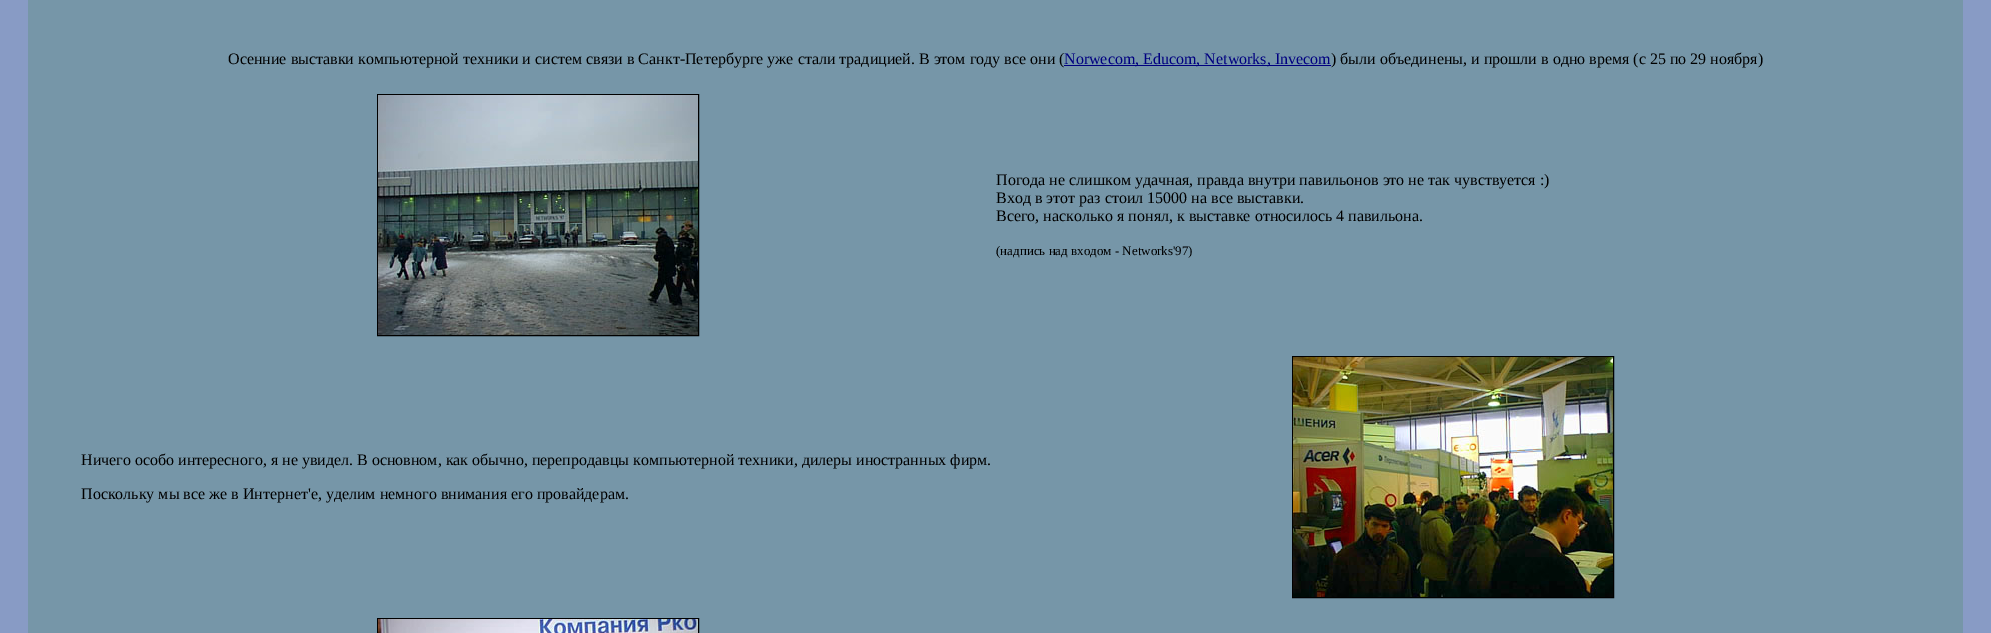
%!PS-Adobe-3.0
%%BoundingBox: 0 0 1991 633
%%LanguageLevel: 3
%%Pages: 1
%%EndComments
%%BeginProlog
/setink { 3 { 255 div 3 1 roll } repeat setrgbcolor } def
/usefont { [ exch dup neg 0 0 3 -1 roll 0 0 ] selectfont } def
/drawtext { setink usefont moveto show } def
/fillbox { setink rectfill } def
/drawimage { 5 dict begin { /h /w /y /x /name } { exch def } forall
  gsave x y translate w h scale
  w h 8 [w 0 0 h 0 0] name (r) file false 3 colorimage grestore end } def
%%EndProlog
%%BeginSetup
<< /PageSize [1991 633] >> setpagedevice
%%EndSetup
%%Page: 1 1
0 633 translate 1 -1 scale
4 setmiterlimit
0 0 1991 633 136 155 197 fillbox
28 0 1935 633 118 150 168 fillbox
(Осенние выставки компьютерной техники и систем связи в Санкт-Петербурге уже стали традицией. В этом году все они \() 228 64 /LiberationSerif-Regular 16 0 0 0 drawtext
1064 65 267 1 0 0 128 fillbox
(Norwecom, Educom, Networks, Invecom) 1064 64 /LiberationSerif-Regular 16 0 0 128 drawtext
(\) были объединены, и прошли в одно время \(с 25 по 29 ноября\)) 1331 64 /LiberationSerif-Regular 16 0 0 0 drawtext
377.5 94.5 321 241 rectstroke
(assets/img1.rgb) 378 95 320 240 drawimage
(Погода не слишком удачная, правда внутри павильонов это не так чувствуется :\)) 996 185 /LiberationSerif-Regular 16 0 0 0 drawtext
(Вход в этот раз стоил 15000 на все выставки.) 996 203 /LiberationSerif-Regular 16 0 0 0 drawtext
(Всего, насколько я понял, к выставке относилось 4 павильона.) 996 221 /LiberationSerif-Regular 16 0 0 0 drawtext
(\(надпись над входом - Networks'97\)) 996 255 /LiberationSerif-Regular 13 0 0 0 drawtext
(Ничего особо интересного, я не увидел. В основном, как обычно, перепродавцы компьютерной техники, дилеры иностранных фирм.) 81 465 /LiberationSerif-Regular 16 0 0 0 drawtext
(Поскольку мы все же в Интернет'е, уделим немного внимания его провайдерам.) 81 499 /LiberationSerif-Regular 16 0 0 0 drawtext
1292.5 356.5 321 241 rectstroke
(assets/img2.rgb) 1293 357 320 240 drawimage
377.5 618.5 321 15 rectstroke
(assets/img3.rgb) 378 619 320 14 drawimage
showpage
%%EOF
